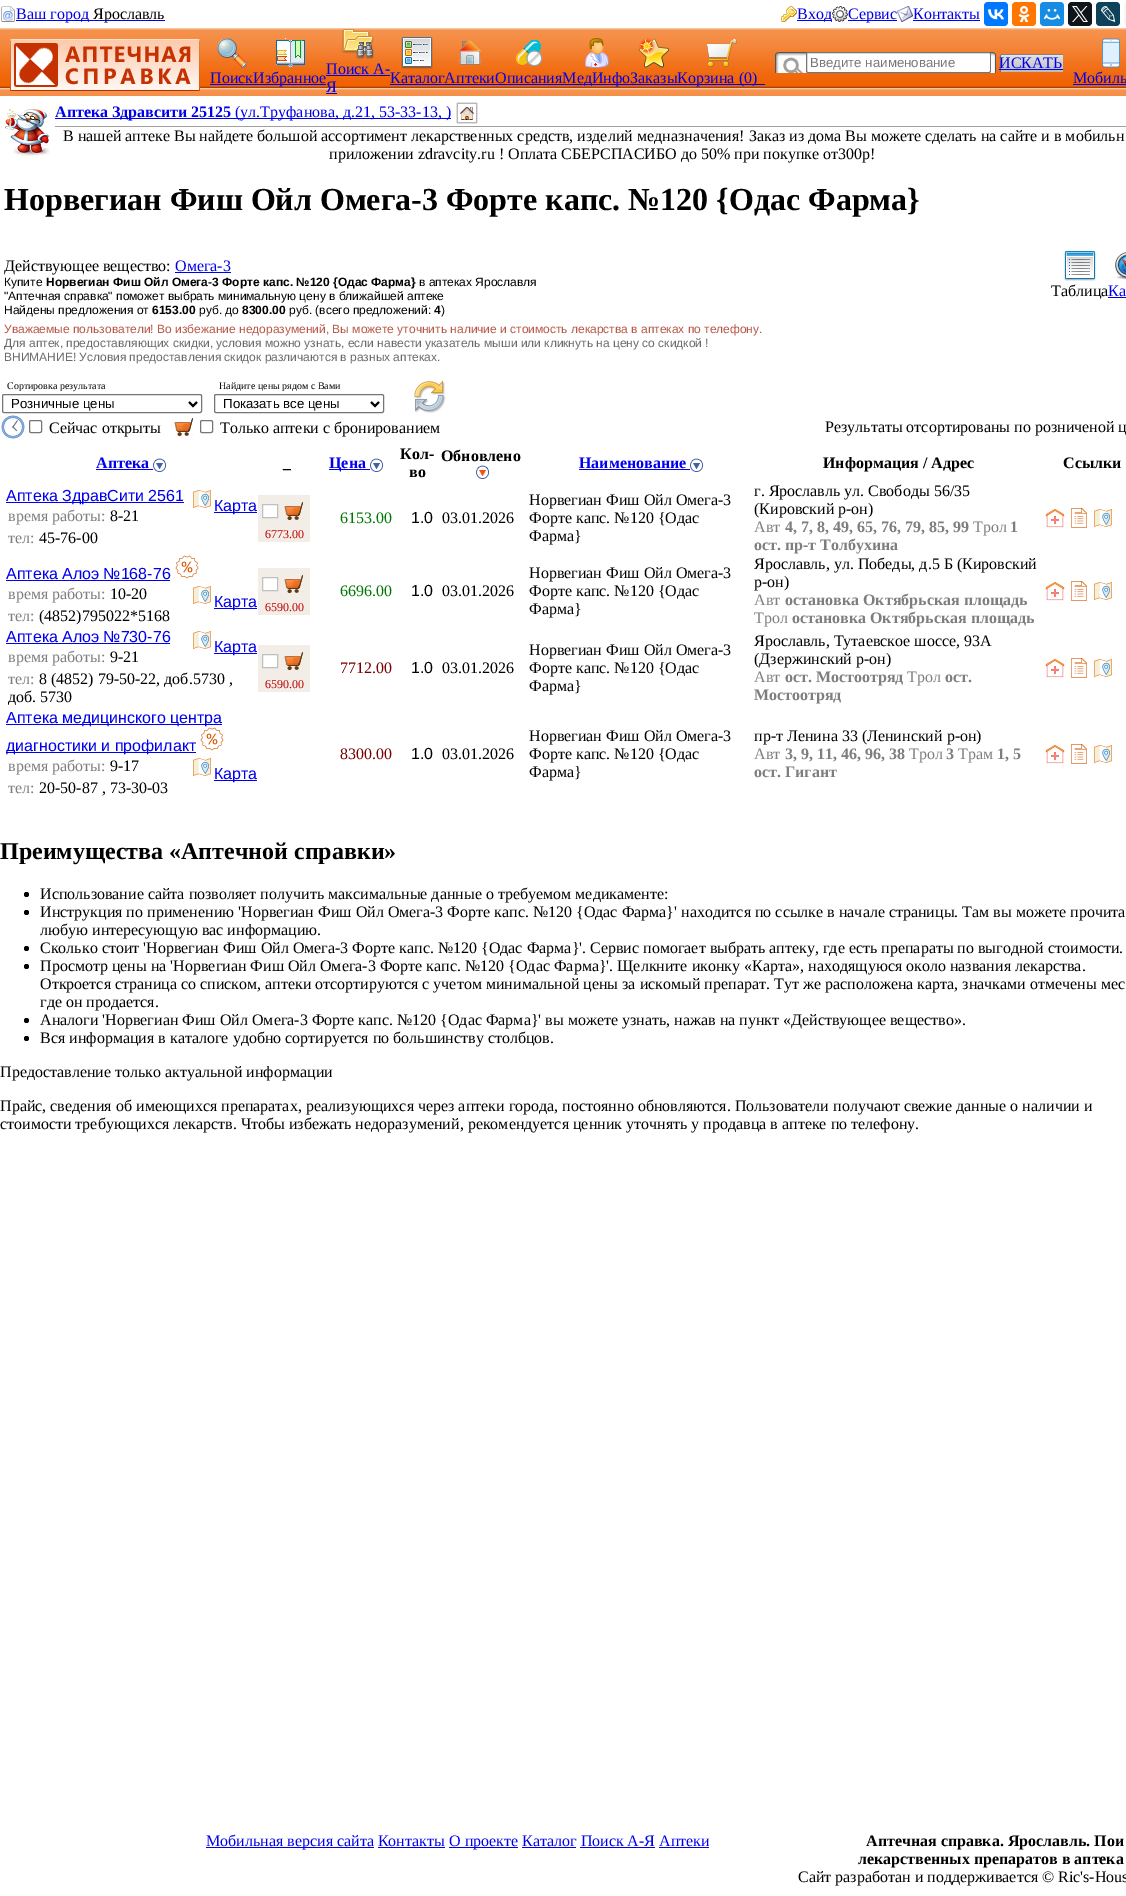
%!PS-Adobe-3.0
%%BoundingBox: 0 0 1126 1896
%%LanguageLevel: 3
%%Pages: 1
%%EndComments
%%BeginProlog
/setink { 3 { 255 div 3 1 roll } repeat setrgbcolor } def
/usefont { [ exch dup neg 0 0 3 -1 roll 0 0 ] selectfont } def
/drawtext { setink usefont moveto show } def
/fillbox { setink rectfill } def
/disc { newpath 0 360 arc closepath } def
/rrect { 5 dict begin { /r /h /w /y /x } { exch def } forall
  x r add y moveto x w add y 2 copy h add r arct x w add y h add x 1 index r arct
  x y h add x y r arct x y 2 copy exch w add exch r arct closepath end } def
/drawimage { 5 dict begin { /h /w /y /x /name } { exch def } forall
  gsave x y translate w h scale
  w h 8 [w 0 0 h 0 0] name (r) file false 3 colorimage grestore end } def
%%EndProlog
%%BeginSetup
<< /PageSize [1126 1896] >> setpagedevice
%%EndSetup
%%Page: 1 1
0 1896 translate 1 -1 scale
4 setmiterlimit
0 0 1126 1896 255 255 255 fillbox
(assets/img1.rgb) 1 6 14 16 drawimage
16 20 149 1 0 0 238 fillbox
(Ваш город) 16 19 /LiberationSerif-Regular 16 0 0 238 drawtext
(Ярославль) 93 19 /LiberationSerif-Regular 16 0 0 0 drawtext
(assets/img2.rgb) 781 6 16 16 drawimage
797 20 35 1 0 0 238 fillbox
(Вход) 797 19 /LiberationSerif-Regular 16 0 0 238 drawtext
(assets/img3.rgb) 832 6 16 16 drawimage
848 20 49 1 0 0 238 fillbox
(Сервис) 848 19 /LiberationSerif-Regular 16 0 0 238 drawtext
(assets/img4.rgb) 897 6 16 16 drawimage
(Контакты) 913 19 /LiberationSerif-Regular 16 0 0 238 drawtext
913 20 67 1 0 0 238 fillbox
0 119 255 setink
984 2 24 24 4 rrect fill
(assets/img5.rgb) 988 9 16 11 drawimage
255 119 0 setink
1012 2 24 24 4 rrect fill
(assets/img6.rgb) 1018 6 12 16 drawimage
22 141 226 setink
1040 2 24 24 4 rrect fill
(assets/img7.rgb) 1044 9 16 11 drawimage
15 20 25 setink
1068 2 24 24 4 rrect fill
(assets/img8.rgb) 1072 6 16 16 drawimage
13 66 90 setink
1096 2 24 24 4 rrect fill
(assets/img9.rgb) 1101 6 15 16 drawimage
247 247 247 setink
1124 2 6 24 4 rrect fill
(assets/img10.rgb) 0 28 1126 68 drawimage
(assets/img11.rgb) 10 39 190 52 drawimage
(assets/img12.rgb) 276 38 29 29 drawimage
(assets/img13.rgb) 342 29 32 30 drawimage
(Поиск А-) 326 74 /LiberationSerif-Regular 16 0 0 238 drawtext
326 75 64 1 0 0 238 fillbox
(Я) 326 92 /LiberationSerif-Regular 16 0 0 238 drawtext
326 93 11 1 0 0 238 fillbox
(assets/img14.rgb) 457 39 26 27 drawimage
(assets/img15.rgb) 515 40 28 27 drawimage
(assets/img16.rgb) 585 38 24 30 drawimage
(assets/img17.rgb) 639 38 30 30 drawimage
(assets/img18.rgb) 706 38 32 30 drawimage
(assets/img19.rgb) 775 52 5 21 drawimage
(assets/img20.rgb) 780 52 26 21 drawimage
(assets/img21.rgb) 806 52 185 21 drawimage
255 255 255 setink
806.5 52.5 184 20 1.5 rrect gsave fill grestore
118 118 118 setink
stroke
(Введите наименование) 810 67 /LiberationSans-Regular 13.25 119 119 119 drawtext
(assets/img22.rgb) 991 52 5 21 drawimage
(assets/img23.rgb) 999 54 64 18 drawimage
(ИСКАТЬ) 999 68 /LiberationSerif-Regular 16 0 0 238 drawtext
999 69 64 1 0 0 238 fillbox
(assets/img24.rgb) 217 38 30 30 drawimage
210 84 116 1 0 0 238 fillbox
(ПоискИзбранное) 210 83 /LiberationSerif-Regular 16 0 0 238 drawtext
(assets/img25.rgb) 401 37 32 32 drawimage
390 84 375 1 0 0 238 fillbox
(КаталогАптекиОписанияМедИнфоЗаказыКорзина \(0\)) 390 83 /LiberationSerif-Regular 16 0 0 238 drawtext
(assets/img26.rgb) 1102 38 18 30 drawimage
(Мобиль) 1073 83 /LiberationSerif-Regular 16 0 0 238 drawtext
1073 84 53 1 0 0 238 fillbox
(assets/img27.rgb) 4 108 46 48 drawimage
55 118 396 1 0 0 238 fillbox
(Аптека Здравсити 25125) 55 117 /LiberationSerif-Bold 16 0 0 238 drawtext
(\(ул.Труфанова, д.21, 53-33-13, \)) 235 117 /LiberationSerif-Regular 16 0 0 238 drawtext
(assets/img28.rgb) 456 102 22 22 drawimage
55 126 1071 1 160 160 160 fillbox
(В нашей аптеке Вы найдете большой ассортимент лекарственных средств, изделий медназначения! Заказ из дома Вы можете cделать на сайте и в мобильн) 63 141 /LiberationSerif-Regular 16 0 0 0 drawtext
(приложении zdravcity.ru ! Оплата СБЕРСПАСИБО до 50% при покупке от300р!) 329 159 /LiberationSerif-Regular 16 0 0 0 drawtext
(Норвегиан Фиш Ойл Омега-3 Форте капс. №120 {Одас Фарма}) 4 210 /LiberationSerif-Bold 32 0 0 0 drawtext
(Действующее вещество:) 4 271 /LiberationSerif-Regular 16 0 0 0 drawtext
(Омега-3) 175 271 /LiberationSerif-Regular 16 0 0 238 drawtext
175 272 56 1 0 0 238 fillbox
(Купите) 4 286 /LiberationSans-Regular 12 0 0 0 drawtext
(Норвегиан Фиш Ойл Омега-3 Форте капс. №120 {Одас Фарма}) 46 286 /LiberationSans-Bold 12 0 0 0 drawtext
(в аптеках Ярославля) 419 286 /LiberationSans-Regular 12 0 0 0 drawtext
("Аптечная справка" поможет выбрать минимальную цену в ближайшей аптеке) 4 300 /LiberationSans-Regular 12 0 0 0 drawtext
(Найдены предложения от) 4 314 /LiberationSans-Regular 12 0 0 0 drawtext
(6153.00) 152 314 /LiberationSans-Bold 12 0 0 0 drawtext
(руб. до) 199 314 /LiberationSans-Regular 12 0 0 0 drawtext
(8300.00) 242 314 /LiberationSans-Bold 12 0 0 0 drawtext
(руб. \(всего предложений:) 289 314 /LiberationSans-Regular 12 0 0 0 drawtext
(4) 434 314 /LiberationSans-Bold 12 0 0 0 drawtext
(\)) 441 314 /LiberationSans-Regular 12 0 0 0 drawtext
(Уважаемые пользователи! Во избежание недоразумений, Вы можете уточнить наличие и стоимость лекарства в аптеках по телефону.) 4 333 /LiberationSans-Regular 12 184 88 71 drawtext
(Для аптек, предоставляющих скидки, условия можно узнать, если навести указатель мыши или кликнуть на цену со скидкой !) 4 347 /LiberationSans-Regular 12 107 107 107 drawtext
(ВНИМАНИЕ! Условия предоставления скидок различаются в разных аптеках.) 4 361 /LiberationSans-Regular 12 107 107 107 drawtext
(assets/img29.rgb) 1064 251 32 30 drawimage
(Таблица) 1051 296 /LiberationSerif-Regular 16 0 0 0 drawtext
(assets/img30.rgb) 1115 252 11 28 drawimage
(Ка) 1108 296 /LiberationSerif-Regular 16 0 0 238 drawtext
1108 297 18 1 0 0 238 fillbox
(Сортировка результата) 7 389 /LiberationSerif-Regular 10 0 0 0 drawtext
118 118 118 setink
2.5 394.5 199 18 1.5 rrect stroke
0 0 0 setink
2 setlinewidth
189 402 moveto 193 406 lineto 197 402 lineto stroke
(Розничные цены) 11 408 /LiberationSans-Regular 13.25 0 0 0 drawtext
(Найдите цены рядом с Вами) 219 389 /LiberationSerif-Regular 10 0 0 0 drawtext
118 118 118 setink
1 setlinewidth
214.5 394.5 169 18 1.5 rrect stroke
0 0 0 setink
2 setlinewidth
371 402 moveto 375 406 lineto 379 402 lineto stroke
(Показать все цены) 223 408 /LiberationSans-Regular 13.25 0 0 0 drawtext
(assets/img31.rgb) 414 381 32 32 drawimage
(assets/img32.rgb) 1 415 24 24 drawimage
118 118 118 setink
1 setlinewidth
29.5 420.5 12 12 1.5 rrect stroke
(Сейчас открыты) 49 433 /LiberationSerif-Regular 16 0 0 0 drawtext
(assets/img33.rgb) 174 418 20 19 drawimage
118 118 118 setink
200.5 420.5 12 12 1.5 rrect stroke
(Только аптеки с бронированием) 220 433 /LiberationSerif-Regular 16 0 0 0 drawtext
(Результаты отсортированы по розниченой ц) 825 432 /LiberationSerif-Regular 16 0 0 0 drawtext
(Аптека) 96 468 /LiberationSerif-Bold 16 0 0 238 drawtext
96 469 57 1 0 0 238 fillbox
(assets/img34.rgb) 153 458 14 14 drawimage
329 469 41 1 0 0 238 fillbox
(Цена) 329 468 /LiberationSerif-Bold 16 0 0 238 drawtext
(assets/img34.rgb) 370 458 14 14 drawimage
(Кол-) 400 459 /LiberationSerif-Bold 16 0 0 0 drawtext
(во) 409 477 /LiberationSerif-Bold 16 0 0 0 drawtext
(Обновлено) 441 461 /LiberationSerif-Bold 16 0 0 0 drawtext
(assets/img35.rgb) 476 465 14 14 drawimage
(Наименование) 579 468 /LiberationSerif-Bold 16 0 0 238 drawtext
579 469 111 1 0 0 238 fillbox
(assets/img34.rgb) 690 458 14 14 drawimage
(Информация / Адрес) 823 468 /LiberationSerif-Bold 16 0 0 0 drawtext
(Ссылки) 1063 468 /LiberationSerif-Bold 16 0 0 0 drawtext
(_) 283 468 /LiberationSerif-Bold 16 0 0 0 drawtext
6 502 178 1 0 0 238 fillbox
(Аптека ЗдравСити 2561) 6 501 /LiberationSans-Regular 16 0 0 238 drawtext
(assets/img36.rgb) 193 490 18 18 drawimage
214 512 43 1 0 0 238 fillbox
(Карта) 214 511 /LiberationSans-Regular 16 0 0 238 drawtext
(время работы:) 8 521 /LiberationSerif-Regular 16 126 126 126 drawtext
(8-21) 110 521 /LiberationSerif-Regular 16 0 0 0 drawtext
(тел:) 8 543 /LiberationSerif-Regular 16 126 126 126 drawtext
(45-76-00) 39 543 /LiberationSerif-Regular 16 0 0 0 drawtext
(6153.00) 340 523 /LiberationSerif-Regular 16 0 119 0 drawtext
(1.0) 411 523 /LiberationSans-Regular 16 0 0 0 drawtext
(03.01.2026) 442 523 /LiberationSerif-Regular 16 0 0 0 drawtext
(Норвегиан Фиш Ойл Омега-3) 529 505 /LiberationSerif-Regular 16 0 0 0 drawtext
(Форте капс. №120 {Одас) 529 523 /LiberationSerif-Regular 16 0 0 0 drawtext
(Фарма}) 529 541 /LiberationSerif-Regular 16 0 0 0 drawtext
(г. Ярославль ул. Свободы 56/35) 754 496 /LiberationSerif-Regular 16 0 0 0 drawtext
(\(Кировский р-он\)) 754 514 /LiberationSerif-Regular 16 0 0 0 drawtext
(Авт) 754 532 /LiberationSerif-Regular 16 126 126 126 drawtext
(4, 7, 8, 49, 65, 76, 79, 85, 99) 785 532 /LiberationSerif-Bold 16 126 126 126 drawtext
(Трол) 973 532 /LiberationSerif-Regular 16 126 126 126 drawtext
(1) 1010 532 /LiberationSerif-Bold 16 126 126 126 drawtext
(ост. пр-т Толбухина) 754 550 /LiberationSerif-Bold 16 126 126 126 drawtext
(assets/img37.rgb) 1045 509 20 19 drawimage
(assets/img38.rgb) 1071 508 16 20 drawimage
(assets/img36.rgb) 1094 509 18 18 drawimage
258 495 52 47 242 237 230 fillbox
255 255 255 setink
262.5 504.5 moveto 277.5 504.5 lineto 277.5 517.5 lineto 262.5 517.5 lineto closepath gsave fill grestore
192 192 192 setink
stroke
(assets/img39.rgb) 284 502 20 19 drawimage
(6773.00) 265 538 /LiberationSerif-Regular 12 193 0 0 drawtext
(Аптека Алоэ №168-76) 6 579 /LiberationSans-Regular 16 0 0 238 drawtext
6 580 164 1 0 0 238 fillbox
(assets/img40.rgb) 175 555 24 24 drawimage
(assets/img36.rgb) 193 586 18 18 drawimage
214 608 43 1 0 0 238 fillbox
(Карта) 214 607 /LiberationSans-Regular 16 0 0 238 drawtext
(время работы:) 8 599 /LiberationSerif-Regular 16 126 126 126 drawtext
(10-20) 110 599 /LiberationSerif-Regular 16 0 0 0 drawtext
(тел:) 8 621 /LiberationSerif-Regular 16 126 126 126 drawtext
(\(4852\)795022*5168) 39 621 /LiberationSerif-Regular 16 0 0 0 drawtext
(6696.00) 340 596 /LiberationSerif-Regular 16 0 119 0 drawtext
(1.0) 411 596 /LiberationSans-Regular 16 0 0 0 drawtext
(03.01.2026) 442 596 /LiberationSerif-Regular 16 0 0 0 drawtext
(Норвегиан Фиш Ойл Омега-3) 529 578 /LiberationSerif-Regular 16 0 0 0 drawtext
(Форте капс. №120 {Одас) 529 596 /LiberationSerif-Regular 16 0 0 0 drawtext
(Фарма}) 529 614 /LiberationSerif-Regular 16 0 0 0 drawtext
(Ярославль, ул. Победы, д.5 Б \(Кировский) 754 569 /LiberationSerif-Regular 16 0 0 0 drawtext
(р-он\)) 754 587 /LiberationSerif-Regular 16 0 0 0 drawtext
(Авт) 754 605 /LiberationSerif-Regular 16 126 126 126 drawtext
(остановка Октябрьская площадь) 785 605 /LiberationSerif-Bold 16 126 126 126 drawtext
(Трол) 754 623 /LiberationSerif-Regular 16 126 126 126 drawtext
(остановка Октябрьская площадь) 792 623 /LiberationSerif-Bold 16 126 126 126 drawtext
(assets/img37.rgb) 1045 582 20 19 drawimage
(assets/img38.rgb) 1071 581 16 20 drawimage
(assets/img36.rgb) 1094 582 18 18 drawimage
258 568 52 47 242 237 230 fillbox
255 255 255 setink
262.5 577.5 moveto 277.5 577.5 lineto 277.5 590.5 lineto 262.5 590.5 lineto closepath gsave fill grestore
192 192 192 setink
stroke
(assets/img39.rgb) 284 575 20 19 drawimage
(6590.00) 265 611 /LiberationSerif-Regular 12 193 0 0 drawtext
(Аптека Алоэ №730-76) 6 642 /LiberationSans-Regular 16 0 0 238 drawtext
6 643 164 1 0 0 238 fillbox
(assets/img36.rgb) 193 631 18 18 drawimage
214 653 43 1 0 0 238 fillbox
(Карта) 214 652 /LiberationSans-Regular 16 0 0 238 drawtext
(время работы:) 8 662 /LiberationSerif-Regular 16 126 126 126 drawtext
(9-21) 110 662 /LiberationSerif-Regular 16 0 0 0 drawtext
(тел:) 8 684 /LiberationSerif-Regular 16 126 126 126 drawtext
(8 \(4852\) 79-50-22, доб.5730 ,) 39 684 /LiberationSerif-Regular 16 0 0 0 drawtext
(доб. 5730) 8 702 /LiberationSerif-Regular 16 0 0 0 drawtext
(7712.00) 340 673 /LiberationSerif-Regular 16 119 0 0 drawtext
(1.0) 411 673 /LiberationSans-Regular 16 0 0 0 drawtext
(03.01.2026) 442 673 /LiberationSerif-Regular 16 0 0 0 drawtext
(Норвегиан Фиш Ойл Омега-3) 529 655 /LiberationSerif-Regular 16 0 0 0 drawtext
(Форте капс. №120 {Одас) 529 673 /LiberationSerif-Regular 16 0 0 0 drawtext
(Фарма}) 529 691 /LiberationSerif-Regular 16 0 0 0 drawtext
(Ярославль, Тутаевское шоссе, 93А) 754 646 /LiberationSerif-Regular 16 0 0 0 drawtext
(\(Дзержинский р-он\)) 754 664 /LiberationSerif-Regular 16 0 0 0 drawtext
(Авт) 754 682 /LiberationSerif-Regular 16 126 126 126 drawtext
(ост. Мостоотряд) 785 682 /LiberationSerif-Bold 16 126 126 126 drawtext
(Трол) 907 682 /LiberationSerif-Regular 16 126 126 126 drawtext
(ост.) 945 682 /LiberationSerif-Bold 16 126 126 126 drawtext
(Мостоотряд) 754 700 /LiberationSerif-Bold 16 126 126 126 drawtext
(assets/img37.rgb) 1045 659 20 19 drawimage
(assets/img38.rgb) 1071 658 16 20 drawimage
(assets/img36.rgb) 1094 659 18 18 drawimage
258 645 52 47 242 237 230 fillbox
255 255 255 setink
262.5 654.5 moveto 277.5 654.5 lineto 277.5 667.5 lineto 262.5 667.5 lineto closepath gsave fill grestore
192 192 192 setink
stroke
(assets/img39.rgb) 284 652 20 19 drawimage
(6590.00) 265 688 /LiberationSerif-Regular 12 193 0 0 drawtext
6 724 216 1 0 0 238 fillbox
(Аптека медицинского центра) 6 723 /LiberationSans-Regular 16 0 0 238 drawtext
6 752 190 1 0 0 238 fillbox
(диагностики и профилакт) 6 751 /LiberationSans-Regular 16 0 0 238 drawtext
(assets/img40.rgb) 200 727 24 24 drawimage
(assets/img36.rgb) 193 758 18 18 drawimage
214 780 43 1 0 0 238 fillbox
(Карта) 214 779 /LiberationSans-Regular 16 0 0 238 drawtext
(время работы:) 8 771 /LiberationSerif-Regular 16 126 126 126 drawtext
(9-17) 110 771 /LiberationSerif-Regular 16 0 0 0 drawtext
(тел:) 8 793 /LiberationSerif-Regular 16 126 126 126 drawtext
(20-50-87 , 73-30-03) 39 793 /LiberationSerif-Regular 16 0 0 0 drawtext
(8300.00) 340 759 /LiberationSerif-Regular 16 119 0 0 drawtext
(1.0) 411 759 /LiberationSans-Regular 16 0 0 0 drawtext
(03.01.2026) 442 759 /LiberationSerif-Regular 16 0 0 0 drawtext
(Норвегиан Фиш Ойл Омега-3) 529 741 /LiberationSerif-Regular 16 0 0 0 drawtext
(Форте капс. №120 {Одас) 529 759 /LiberationSerif-Regular 16 0 0 0 drawtext
(Фарма}) 529 777 /LiberationSerif-Regular 16 0 0 0 drawtext
(пр-т Ленина 33 \(Ленинский р-он\)) 754 741 /LiberationSerif-Regular 16 0 0 0 drawtext
(Авт) 754 759 /LiberationSerif-Regular 16 126 126 126 drawtext
(3, 9, 11, 46, 96, 38) 785 759 /LiberationSerif-Bold 16 126 126 126 drawtext
(Трол) 909 759 /LiberationSerif-Regular 16 126 126 126 drawtext
(3) 946 759 /LiberationSerif-Bold 16 126 126 126 drawtext
(Трам) 958 759 /LiberationSerif-Regular 16 126 126 126 drawtext
(1, 5) 997 759 /LiberationSerif-Bold 16 126 126 126 drawtext
(ост. Гигант) 754 777 /LiberationSerif-Bold 16 126 126 126 drawtext
(assets/img37.rgb) 1045 745 20 19 drawimage
(assets/img38.rgb) 1071 744 16 20 drawimage
(assets/img36.rgb) 1094 745 18 18 drawimage
(Преимущества «Аптечной справки») 0 859 /LiberationSerif-Bold 24 0 0 0 drawtext
26.5 894.5 2.5 disc fill
(Использование сайта позволяет получить максимальные данные о требуемом медикаменте:) 40 899 /LiberationSerif-Regular 16 0 0 0 drawtext
26.5 912.5 2.5 disc fill
(Инструкция по применению 'Норвегиан Фиш Ойл Омега-3 Форте капс. №120 {Одас Фарма}' находится по ссылке в начале страницы. Там вы можете прочита) 40 917 /LiberationSerif-Regular 16 0 0 0 drawtext
(любую интересующую вас информацию.) 40 935 /LiberationSerif-Regular 16 0 0 0 drawtext
26.5 948.5 2.5 disc fill
(Сколько стоит 'Норвегиан Фиш Ойл Омега-3 Форте капс. №120 {Одас Фарма}'. Сервис помогает выбрать аптеку, где есть препараты по выгодной стоимости.) 40 953 /LiberationSerif-Regular 16 0 0 0 drawtext
26.5 966.5 2.5 disc fill
(Просмотр цены на 'Норвегиан Фиш Ойл Омега-3 Форте капс. №120 {Одас Фарма}'. Щелкните иконку «Карта», находящуюся около названия лекарства.) 40 971 /LiberationSerif-Regular 16 0 0 0 drawtext
(Откроется страница со списком, аптеки отсортируются с учетом минимальной цены за искомый препарат. Тут же расположена карта, значками отмечены мес) 40 989 /LiberationSerif-Regular 16 0 0 0 drawtext
(где он продается.) 40 1007 /LiberationSerif-Regular 16 0 0 0 drawtext
26.5 1020.5 2.5 disc fill
(Аналоги 'Норвегиан Фиш Ойл Омега-3 Форте капс. №120 {Одас Фарма}' вы можете узнать, нажав на пункт «Действующее вещество».) 40 1025 /LiberationSerif-Regular 16 0 0 0 drawtext
26.5 1038.5 2.5 disc fill
(Вся информация в каталоге удобно сортируется по большинству столбцов.) 40 1043 /LiberationSerif-Regular 16 0 0 0 drawtext
(Предоставление только актуальной информации) 0 1077 /LiberationSerif-Regular 16 0 0 0 drawtext
(Прайс, сведения об имеющихся препаратах, реализующихся через аптеки города, постоянно обновляются. Пользователи получают свежие данные о наличии и) 0 1111 /LiberationSerif-Regular 16 0 0 0 drawtext
(стоимости требующихся лекарств. Чтобы избежать недоразумений, рекомендуется ценник уточнять у продавца в аптеке по телефону.) 0 1129 /LiberationSerif-Regular 16 0 0 0 drawtext
206 1847 168 1 0 0 238 fillbox
(Мобильная версия сайта Контакты) 206 1846 /LiberationSerif-Regular 16 0 0 238 drawtext
449 1847 69 1 0 0 238 fillbox
(О проекте Каталог Поиск А-Я Аптеки) 449 1846 /LiberationSerif-Regular 16 0 0 238 drawtext
378 1847 67 1 0 0 238 fillbox
522 1847 54 1 0 0 238 fillbox
580 1847 75 1 0 0 238 fillbox
659 1847 50 1 0 0 238 fillbox
(Аптечная справка. Ярославль. Пои) 866 1846 /LiberationSerif-Bold 16 0 0 0 drawtext
(лекарственных препаратов в аптека) 858 1864 /LiberationSerif-Bold 16 0 0 0 drawtext
(Сайт разработан и поддерживается © Ric's-Hous) 798 1882 /LiberationSerif-Regular 16 0 0 0 drawtext
showpage
%%EOF
